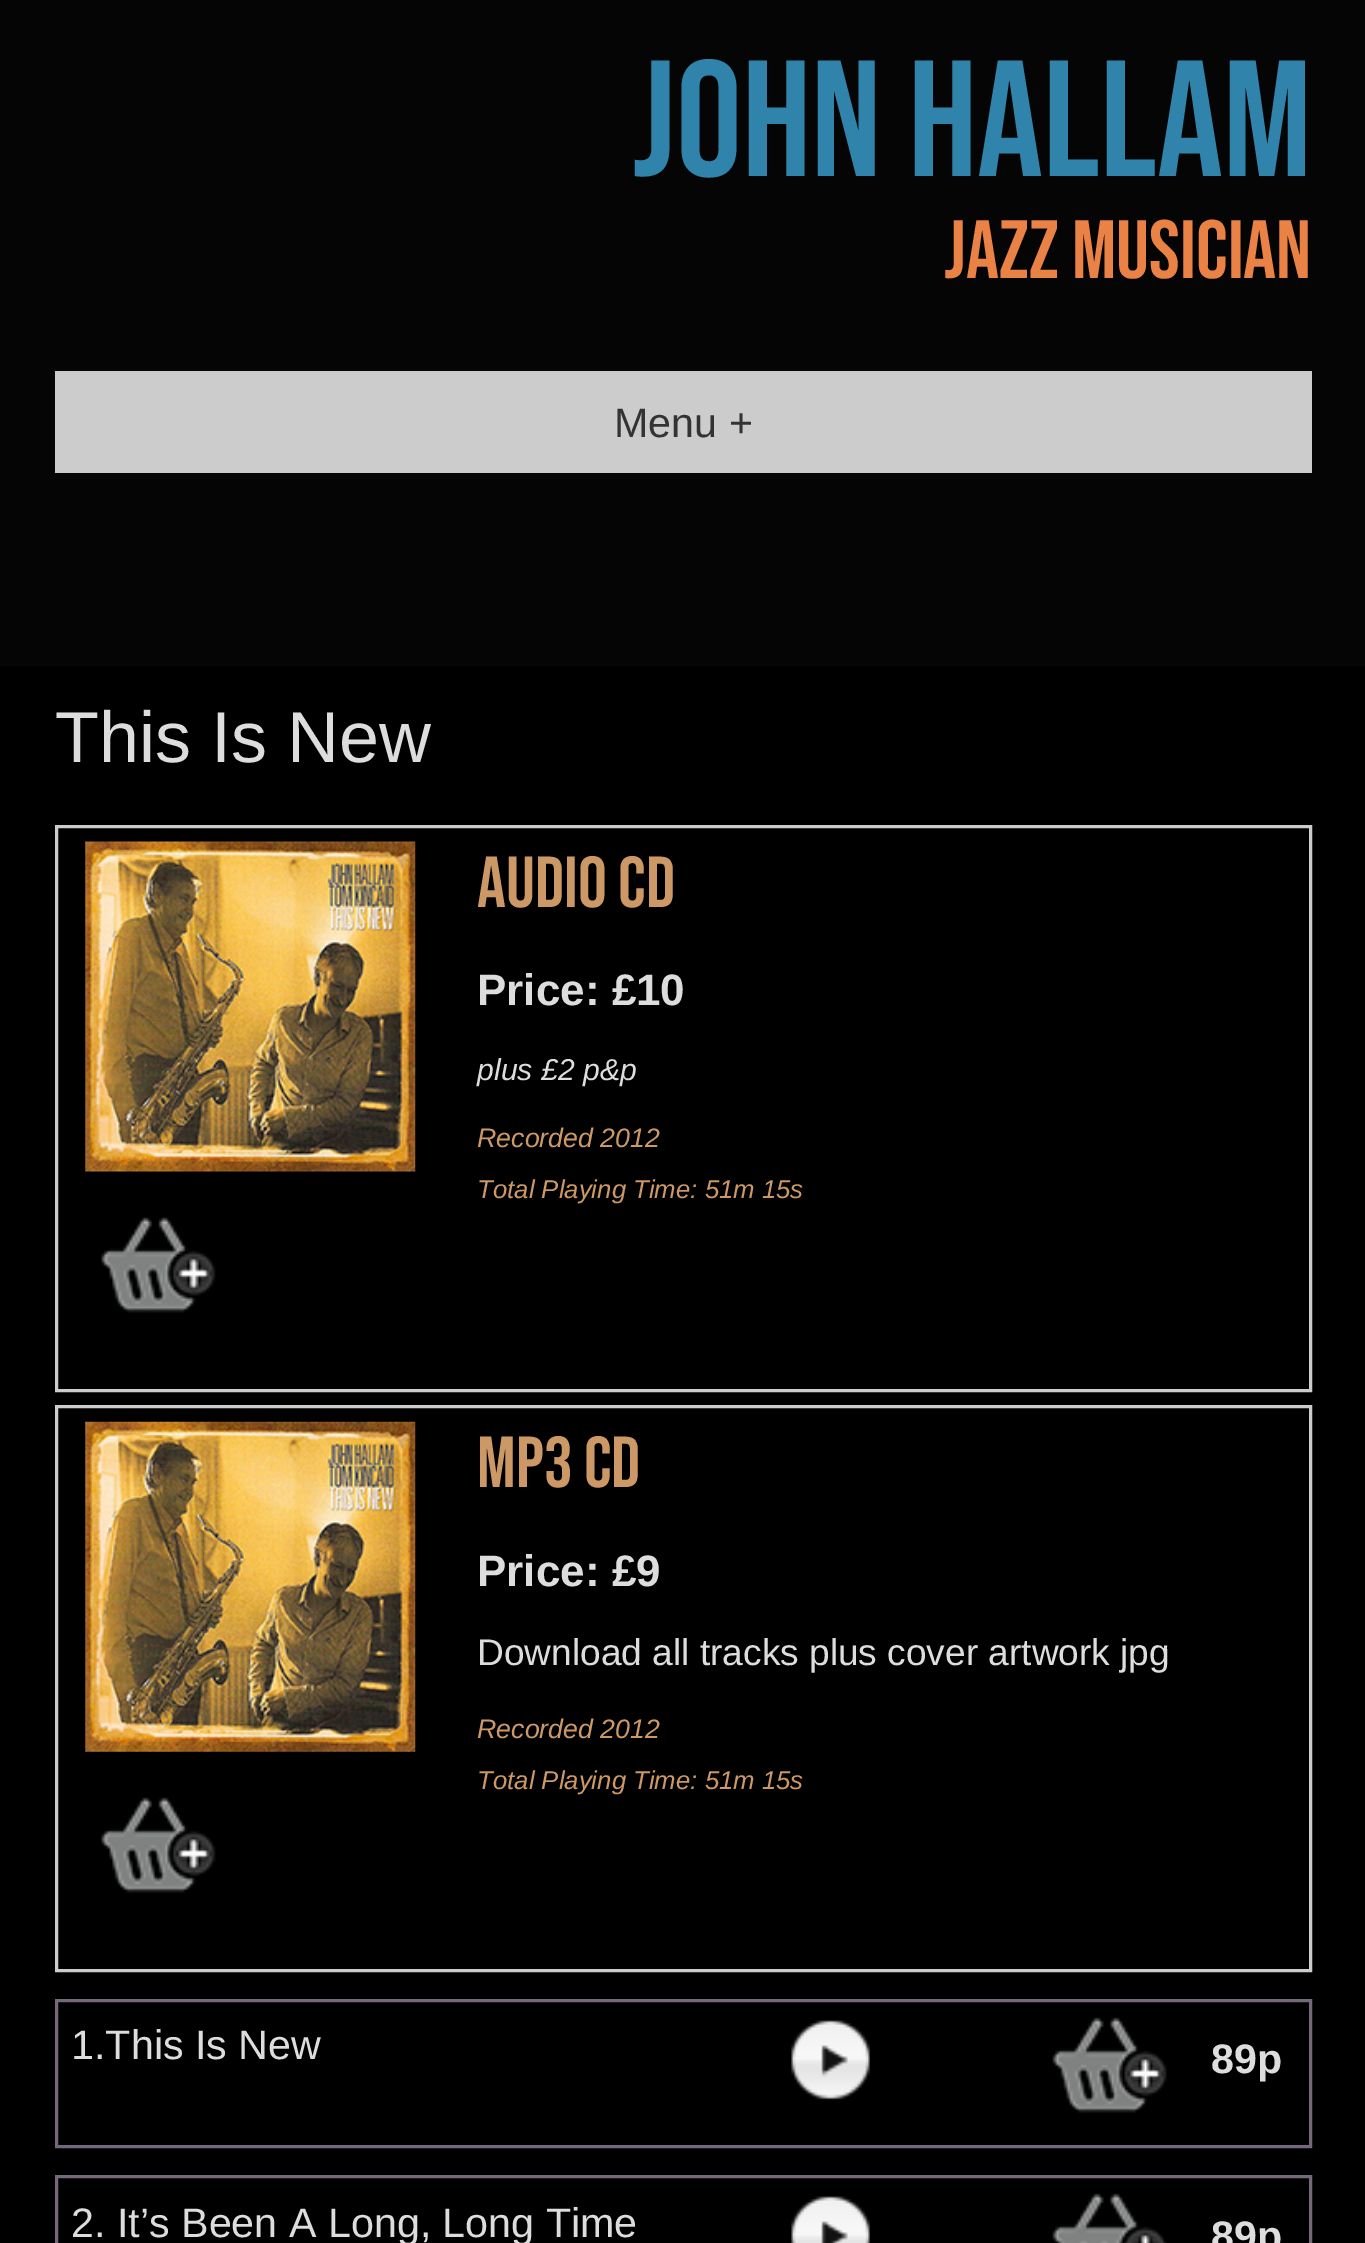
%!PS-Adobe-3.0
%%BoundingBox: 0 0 1365 2243
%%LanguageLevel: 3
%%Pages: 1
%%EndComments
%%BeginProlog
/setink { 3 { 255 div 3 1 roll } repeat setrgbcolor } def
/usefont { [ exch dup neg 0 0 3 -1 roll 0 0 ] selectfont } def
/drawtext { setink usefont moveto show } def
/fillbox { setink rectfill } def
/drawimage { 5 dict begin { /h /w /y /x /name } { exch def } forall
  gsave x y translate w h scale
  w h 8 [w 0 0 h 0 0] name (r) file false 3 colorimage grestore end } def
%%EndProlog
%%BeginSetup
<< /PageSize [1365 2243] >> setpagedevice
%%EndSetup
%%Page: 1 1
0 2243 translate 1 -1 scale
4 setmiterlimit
0 0 1365 2243 0 0 0 fillbox
0 0 1365 666 5 5 5 fillbox
(JOHN HALLAM) 632 176 /BebasNeue-Regular 165 48 132 171 drawtext
(JAZZ MUSICIAN) 944 278 /BebasNeue-Regular 82.5 235 130 69 drawtext
55 371 1257 102 204 204 204 fillbox
(Menu +) 614 437 /LiberationSans-Regular 41.25 51 51 51 drawtext
(This Is New) 55 762 /LiberationSans-Regular 72 221 221 221 drawtext
204 204 204 setink
3 setlinewidth
56.5 826.5 1254 564 rectstroke
(assets/img1.rgb) 85 841 331 331 drawimage
(assets/img2.rgb) 101 1217 115 96 drawimage
(AUDIO CD) 477 907 /BebasNeue-Regular 72 204 153 102 drawtext
(Price: £10) 477 1005 /LiberationSans-Bold 44 221 221 221 drawtext
(plus £2 p&p) 477 1080 /LiberationSans-Italic 30.25 221 221 221 drawtext
(Recorded 2012) 477 1147 /LiberationSans-Italic 26.75 204 153 102 drawtext
(Total Playing Time: 51m 15s) 477 1198 /LiberationSans-Italic 25.75 204 153 102 drawtext
204 204 204 setink
56.5 1406.5 1254 564 rectstroke
(assets/img3.rgb) 85 1421 331 331 drawimage
(assets/img4.rgb) 101 1797 115 96 drawimage
(MP3 CD) 477 1487 /BebasNeue-Regular 72 204 153 102 drawtext
(Price: £9) 477 1586 /LiberationSans-Bold 44 221 221 221 drawtext
(Download all tracks plus cover artwork jpg) 477 1665 /LiberationSans-Regular 37.1 221 221 221 drawtext
(Recorded 2012) 477 1738 /LiberationSans-Italic 26.75 204 153 102 drawtext
(Total Playing Time: 51m 15s) 477 1789 /LiberationSans-Italic 25.75 204 153 102 drawtext
116 104 123 setink
56.5 2000.5 1254 146 rectstroke
(1.This Is New) 71 2059 /LiberationSans-Regular 41.25 221 221 221 drawtext
(assets/img5.rgb) 791 2020 79 80 drawimage
(assets/img6.rgb) 1052 2017 115 96 drawimage
(89p) 1211 2073 /LiberationSans-Bold 41.25 221 221 221 drawtext
116 104 123 setink
56.5 2176.5 1254 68 rectstroke
(2. It’s Been A Long, Long Time) 71 2237 /LiberationSans-Regular 41.25 221 221 221 drawtext
(assets/img7.rgb) 791 2196 79 47 drawimage
(assets/img8.rgb) 1052 2193 115 50 drawimage
(89p) 1211 2250 /LiberationSans-Bold 41.25 221 221 221 drawtext
showpage
%%EOF
